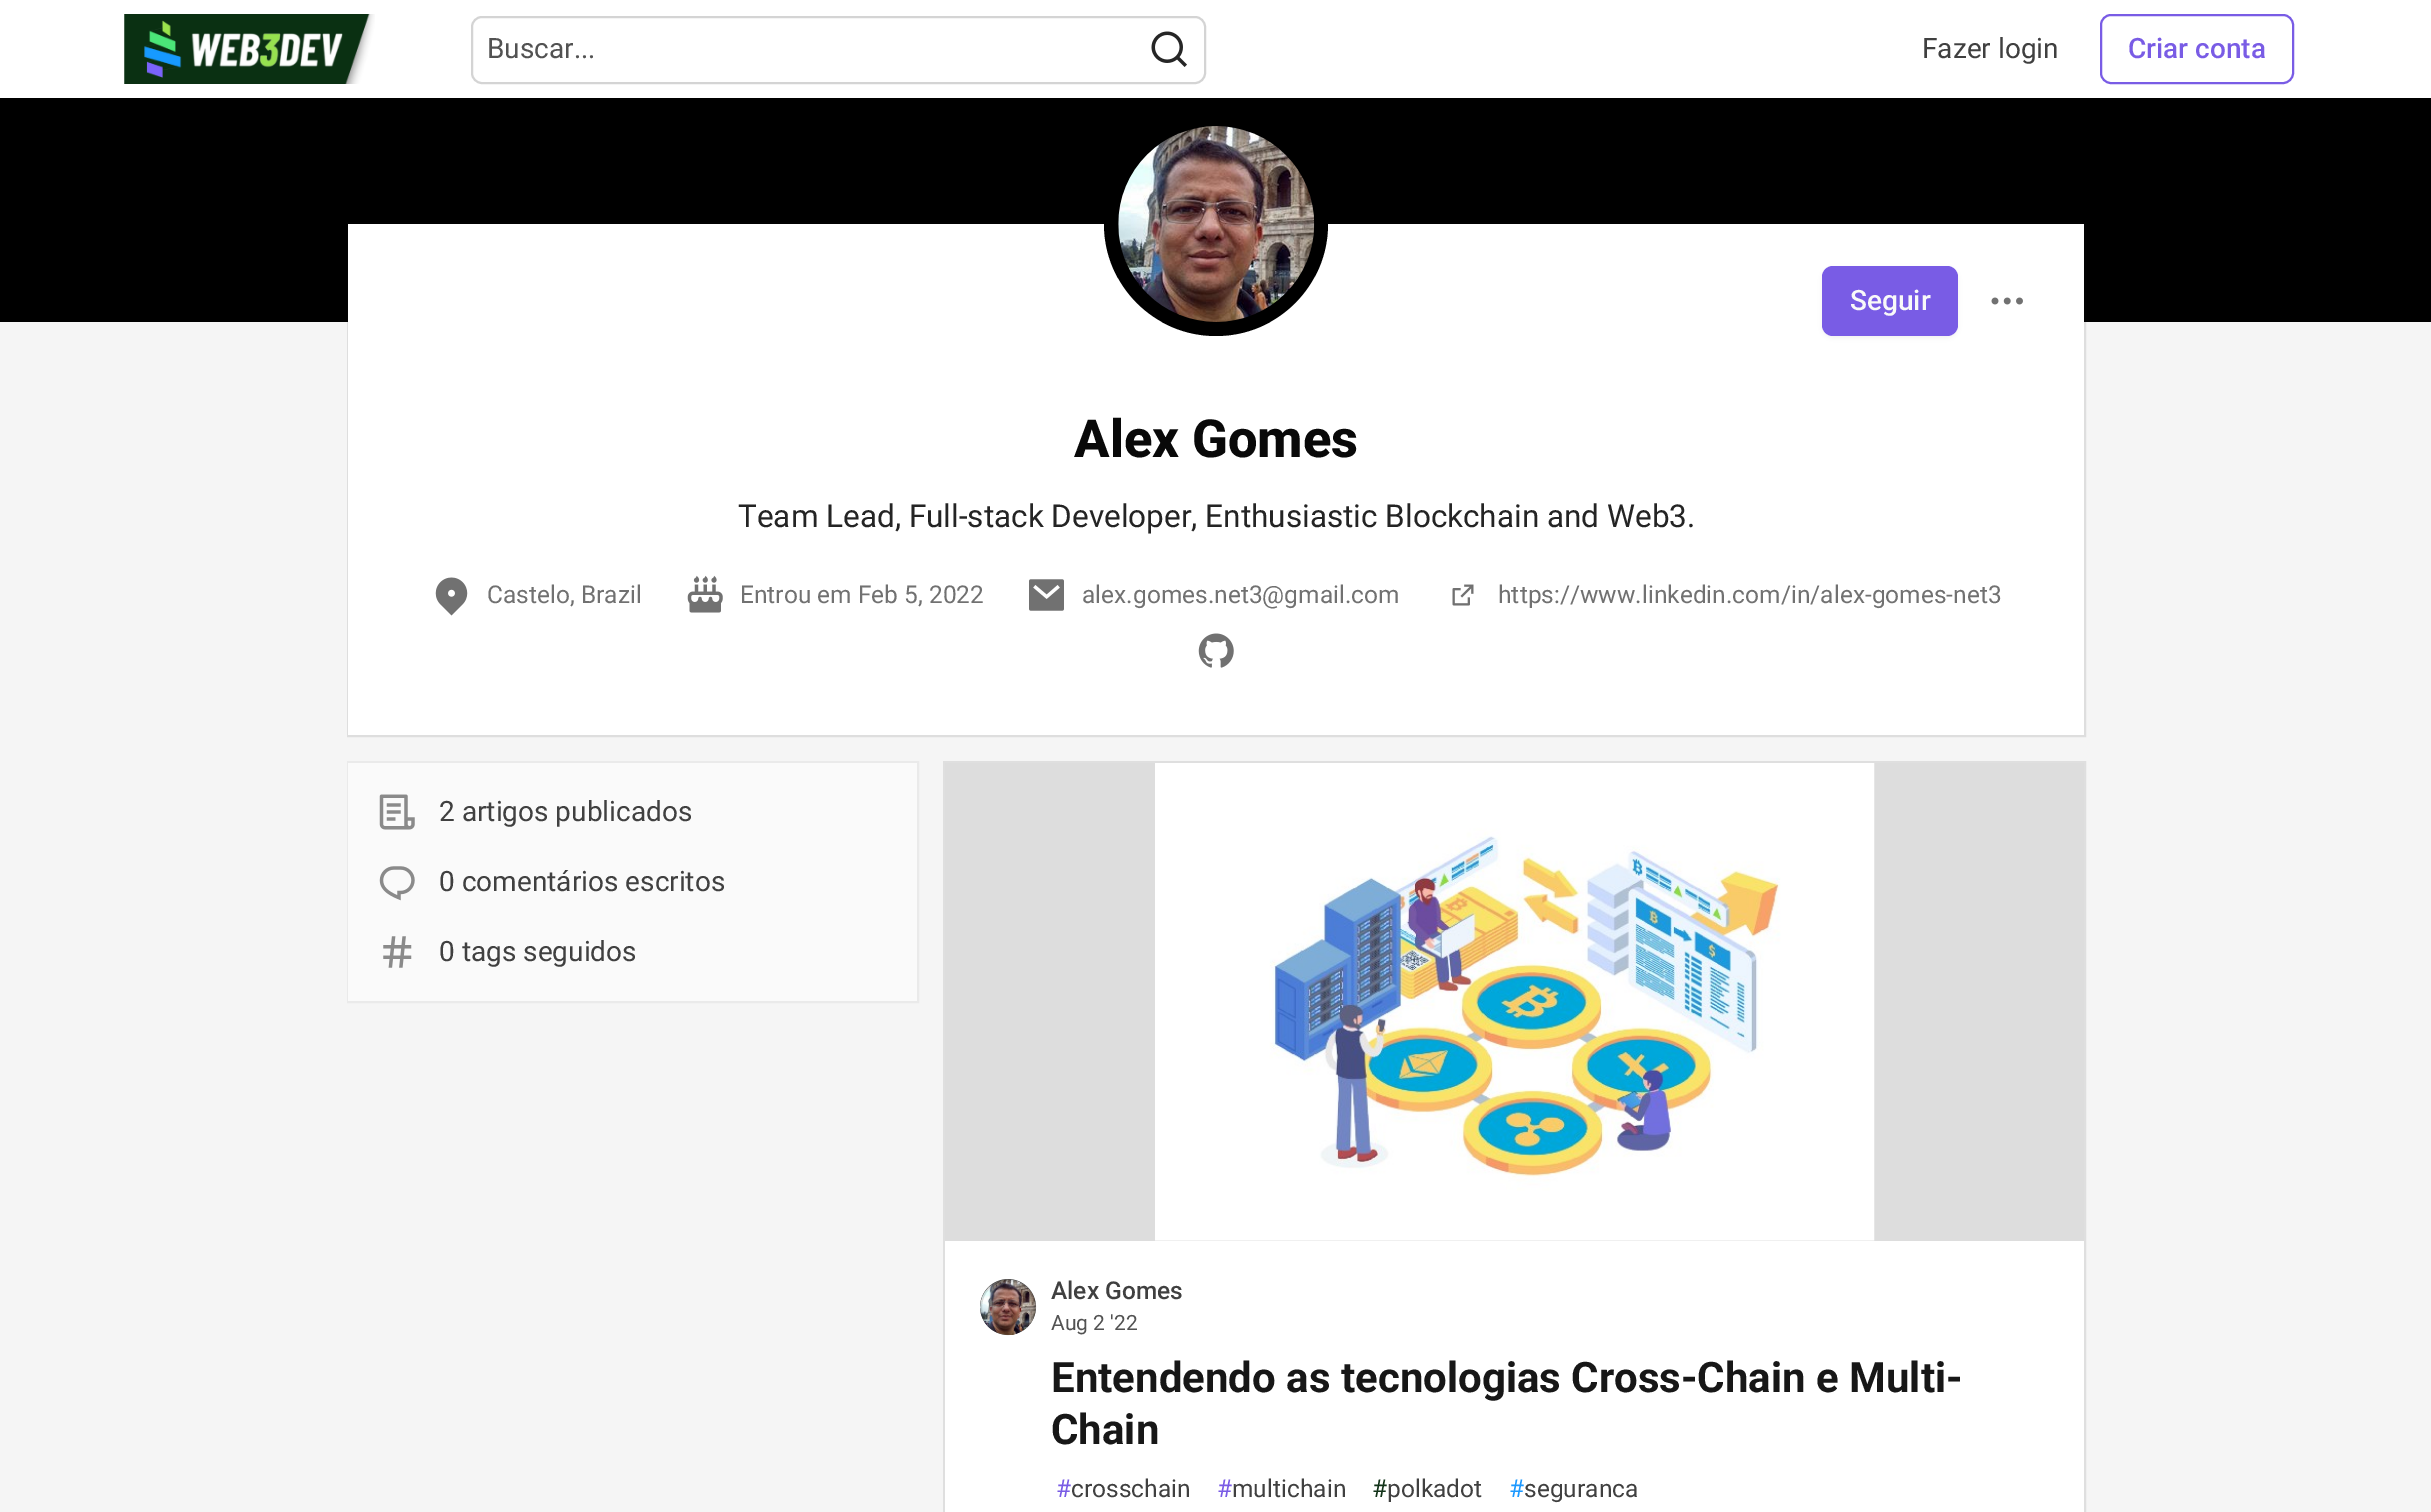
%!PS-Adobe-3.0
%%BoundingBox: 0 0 2431 1512
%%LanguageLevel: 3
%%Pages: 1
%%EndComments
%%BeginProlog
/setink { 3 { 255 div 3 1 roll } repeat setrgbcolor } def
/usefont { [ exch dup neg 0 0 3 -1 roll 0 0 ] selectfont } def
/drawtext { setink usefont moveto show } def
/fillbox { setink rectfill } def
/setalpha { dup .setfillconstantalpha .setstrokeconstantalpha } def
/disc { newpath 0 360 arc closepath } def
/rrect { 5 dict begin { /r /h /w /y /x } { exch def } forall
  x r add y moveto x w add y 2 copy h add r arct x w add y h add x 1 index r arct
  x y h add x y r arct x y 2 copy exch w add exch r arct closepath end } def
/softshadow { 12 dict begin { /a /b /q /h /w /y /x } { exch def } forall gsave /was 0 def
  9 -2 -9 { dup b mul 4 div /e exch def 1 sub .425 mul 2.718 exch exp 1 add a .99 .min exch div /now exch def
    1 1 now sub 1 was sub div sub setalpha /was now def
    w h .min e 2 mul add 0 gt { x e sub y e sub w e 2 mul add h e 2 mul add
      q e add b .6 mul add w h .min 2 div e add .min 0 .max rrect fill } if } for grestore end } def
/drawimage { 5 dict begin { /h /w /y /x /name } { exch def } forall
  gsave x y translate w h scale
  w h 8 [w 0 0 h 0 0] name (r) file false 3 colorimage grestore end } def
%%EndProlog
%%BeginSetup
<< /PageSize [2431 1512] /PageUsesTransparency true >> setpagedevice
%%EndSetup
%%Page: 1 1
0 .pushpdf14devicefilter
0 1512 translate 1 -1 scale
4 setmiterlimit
0 0 2431 1512 245 245 245 fillbox
0 0 2431 98 255 255 255 fillbox
(assets/img1.rgb) 124 14 251 70 drawimage
212 212 212 setink
2 setlinewidth
472 17 733 66 10 rrect stroke
(Buscar...) 487 58 /Roboto-Regular 28 82 82 82 drawtext
(assets/img2.rgb) 1151 31 36 36 drawimage
(Fazer login) 1922 58 /Roboto-Regular 28 64 64 64 drawtext
121 92 229 setink
2101 15 192 68 10 rrect stroke
(Criar conta) 2128 58 /Roboto-Medium 28 121 92 229 drawtext
0 98 2431 224 0 0 0 fillbox
0.1 setalpha
23 23 23 setink
348 223 1737 513 rectstroke
1 setalpha
348 224 1736 511 255 255 255 fillbox
0 0 0 setink
1216 224 112 disc fill
(assets/img3.rgb) 1118 126 197 196 drawimage
1822 268 136 70 11 2.5 0.05 softshadow
121 92 229 setink
1822 266 136 70 11 rrect fill
(Seguir) 1850 310 /Roboto-Medium 28 249 249 249 drawtext
(assets/img4.rgb) 1991 297 32 8 drawimage
(Alex Gomes) 1074 457 /Roboto-ExtraBold 52.5 9 9 9 drawtext
(Team Lead, Full-stack Developer, Enthusiastic Blockchain and Web3.) 738 527 /Roboto-Regular 31.5 36 36 36 drawtext
(assets/img5.rgb) 435 577 33 39 drawimage
(Castelo, Brazil) 487 603 /Roboto-Regular 24.5 113 113 113 drawtext
(assets/img6.rgb) 687 575 36 38 drawimage
(Entrou em Feb 5, 2022) 740 603 /Roboto-Regular 24.5 113 113 113 drawtext
(assets/img7.rgb) 1029 579 35 32 drawimage
(alex.gomes.net3@gmail.com) 1082 603 /Roboto-Regular 24.5 113 113 113 drawtext
(assets/img8.rgb) 1452 584 22 22 drawimage
(https://www.linkedin.com/in/alex-gomes-net3) 1498 603 /Roboto-Regular 24.5 113 113 113 drawtext
(assets/img9.rgb) 1198 633 36 35 drawimage
234 234 234 setink
348 762 570 240 rectstroke
348 763 569 238 250 250 250 fillbox
(assets/img10.rgb) 379 794 36 36 drawimage
(2 artigos publicados) 439 821 /Roboto-Regular 28 64 64 64 drawtext
(assets/img11.rgb) 379 866 36 35 drawimage
(0 comentários escritos) 439 891 /Roboto-Regular 28 64 64 64 drawtext
(assets/img12.rgb) 383 936 29 32 drawimage
(0 tags seguidos) 439 961 /Roboto-Regular 28 64 64 64 drawtext
223 223 223 setink
944 762 1141 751 rectstroke
945 1241 1139 271 255 255 255 fillbox
945 763 1139 478 221 221 221 fillbox
(assets/img13.rgb) 1155 763 720 478 drawimage
82 82 82 setink
1008 1307 28 disc fill
(assets/img14.rgb) 980 1279 56 56 drawimage
0.15 setalpha
23 23 23 setink
1008 1307 27 disc stroke
1 setalpha
(Alex Gomes) 1051 1299 /Roboto-Medium 24.5 64 64 64 drawtext
(Aug 2 '22) 1051 1330 /Roboto-Regular 21 82 82 82 drawtext
(Entendendo as tecnologias Cross-Chain e Multi-) 1051 1392 /Roboto-Bold 42 23 23 23 drawtext
(Chain) 1051 1444 /Roboto-Bold 42 23 23 23 drawtext
(#) 1056 1497 /Roboto-Regular 24.5 121 92 229 drawtext
(crosschain) 1071 1497 /Roboto-Regular 24.5 64 64 64 drawtext
(#) 1217 1497 /Roboto-Regular 24.5 121 92 229 drawtext
(multichain) 1232 1497 /Roboto-Regular 24.5 64 64 64 drawtext
(#) 1372 1497 /Roboto-Regular 24.5 18 51 25 drawtext
(polkadot) 1387 1497 /Roboto-Regular 24.5 64 64 64 drawtext
(#) 1509 1497 /Roboto-Regular 24.5 29 153 255 drawtext
(seguranca) 1524 1497 /Roboto-Regular 24.5 64 64 64 drawtext
.poppdf14devicefilter showpage
%%EOF
